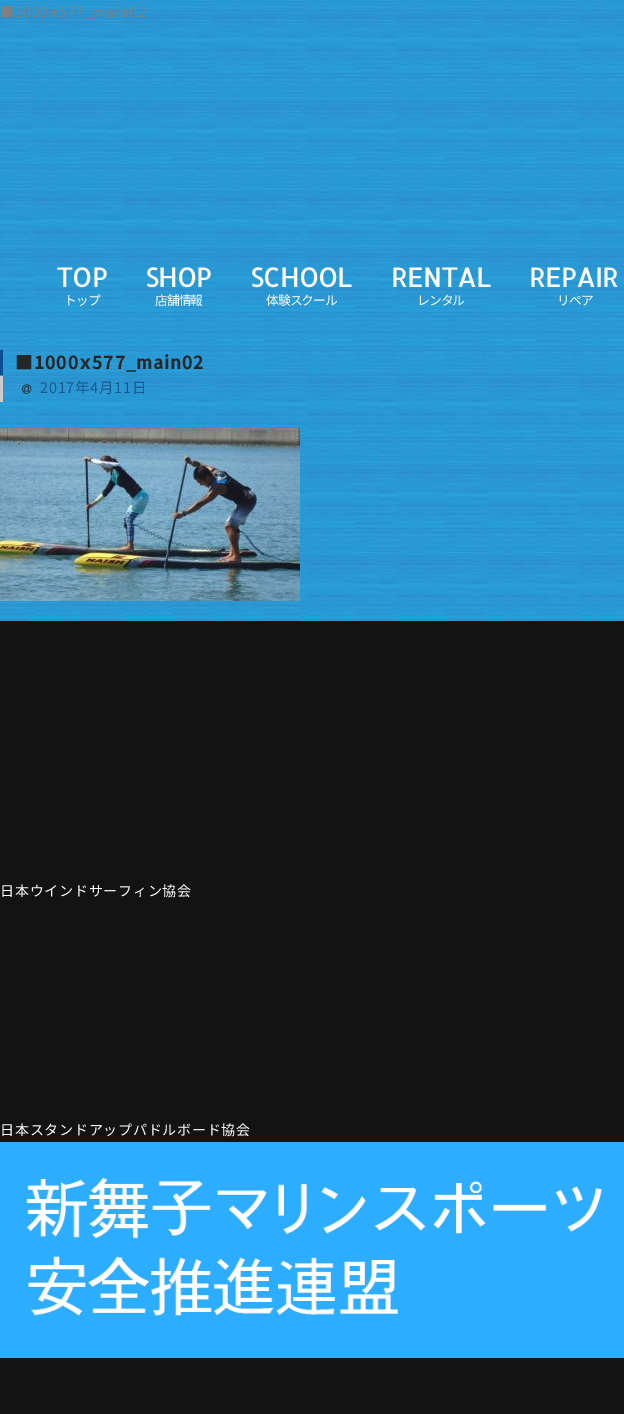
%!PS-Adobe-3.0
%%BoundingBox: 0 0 624 1414
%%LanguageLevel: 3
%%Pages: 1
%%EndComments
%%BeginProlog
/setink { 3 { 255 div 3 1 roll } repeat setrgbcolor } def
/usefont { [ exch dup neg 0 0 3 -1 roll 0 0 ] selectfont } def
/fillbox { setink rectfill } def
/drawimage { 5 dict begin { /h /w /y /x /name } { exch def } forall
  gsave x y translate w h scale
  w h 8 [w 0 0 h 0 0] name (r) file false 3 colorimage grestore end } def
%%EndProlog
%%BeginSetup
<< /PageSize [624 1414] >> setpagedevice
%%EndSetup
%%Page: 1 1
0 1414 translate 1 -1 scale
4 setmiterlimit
0 0 624 1414 255 255 255 fillbox
(assets/img1.rgb) 0 0 624 621 drawimage
/NotoSansJP-Regular 14 usefont
128 128 128 setink
0 17 moveto 0.75 0 (■1000) ashow
/Allerta-Regular 14 usefont
49 17 moveto 0.75 0 (x) ashow
/NotoSansJP-Regular 14 usefont
59 17 moveto 0.75 0 (577_) ashow
/Allerta-Regular 14 usefont
93 17 moveto 0.75 0 (main) ashow
/NotoSansJP-Regular 14 usefont
129 17 moveto 0.75 0 (02) ashow
(assets/img2.rgb) 0 239 624 91 drawimage
/Allerta-Regular 27 usefont
255 255 255 setink
56 287 moveto -1 0 (TOP) ashow
/NotoSansJP-Regular 12.75 usefont
64 305 moveto -1 0 (トップ) ashow
/Allerta-Regular 27 usefont
145 287 moveto -1 0 (SHOP) ashow
/NotoSansJP-Regular 12.75 usefont
155 305 moveto -1 0 (店舗情報) ashow
/Allerta-Regular 27 usefont
250 287 moveto -1 0 (SCHOOL) ashow
/NotoSansJP-Regular 12.75 usefont
266 305 moveto -1 0 (体験スクール) ashow
/Allerta-Regular 27 usefont
391 287 moveto -1 0 (RENTAL) ashow
/NotoSansJP-Regular 12.75 usefont
417 305 moveto -1 0 (レンタル) ashow
/Allerta-Regular 27 usefont
529 287 moveto -1 0 (REPAIR) ashow
/NotoSansJP-Regular 12.75 usefont
557 305 moveto -1 0 (リペア) ashow
0 350 3 25 14 79 145 fillbox
/NotoSansJP-Bold 18 usefont
38 38 38 setink
15 369 moveto 0.75 0 (■1000) ashow
/Allerta-Bold 18 usefont
79 369 moveto 0.75 0 (x) ashow
/NotoSansJP-Bold 18 usefont
92 369 moveto 0.75 0 (577_) ashow
/Allerta-Bold 18 usefont
136 369 moveto 0.75 0 (main) ashow
/NotoSansJP-Bold 18 usefont
182 369 moveto 0.75 0 (02) ashow
0 376 3 26 204 202 202 fillbox
(assets/img3.rgb) 22 384 10 10 drawimage
/NotoSansJP-Regular 14.5 usefont
27 88 144 setink
40 393 moveto 0.75 0 (2017年4月11日) ashow
(assets/img4.rgb) 0 428 300 173 drawimage
0 621 624 793 19 19 19 fillbox
/NotoSansJP-Regular 14 usefont
255 255 255 setink
0 896 moveto 0.75 0 (日本ウインドサーフィン協会) ashow
0 1135 moveto 0.75 0 (日本スタンドアップパドルボード協会) ashow
(assets/img5.rgb) 0 1142 624 216 drawimage
showpage
%%EOF
